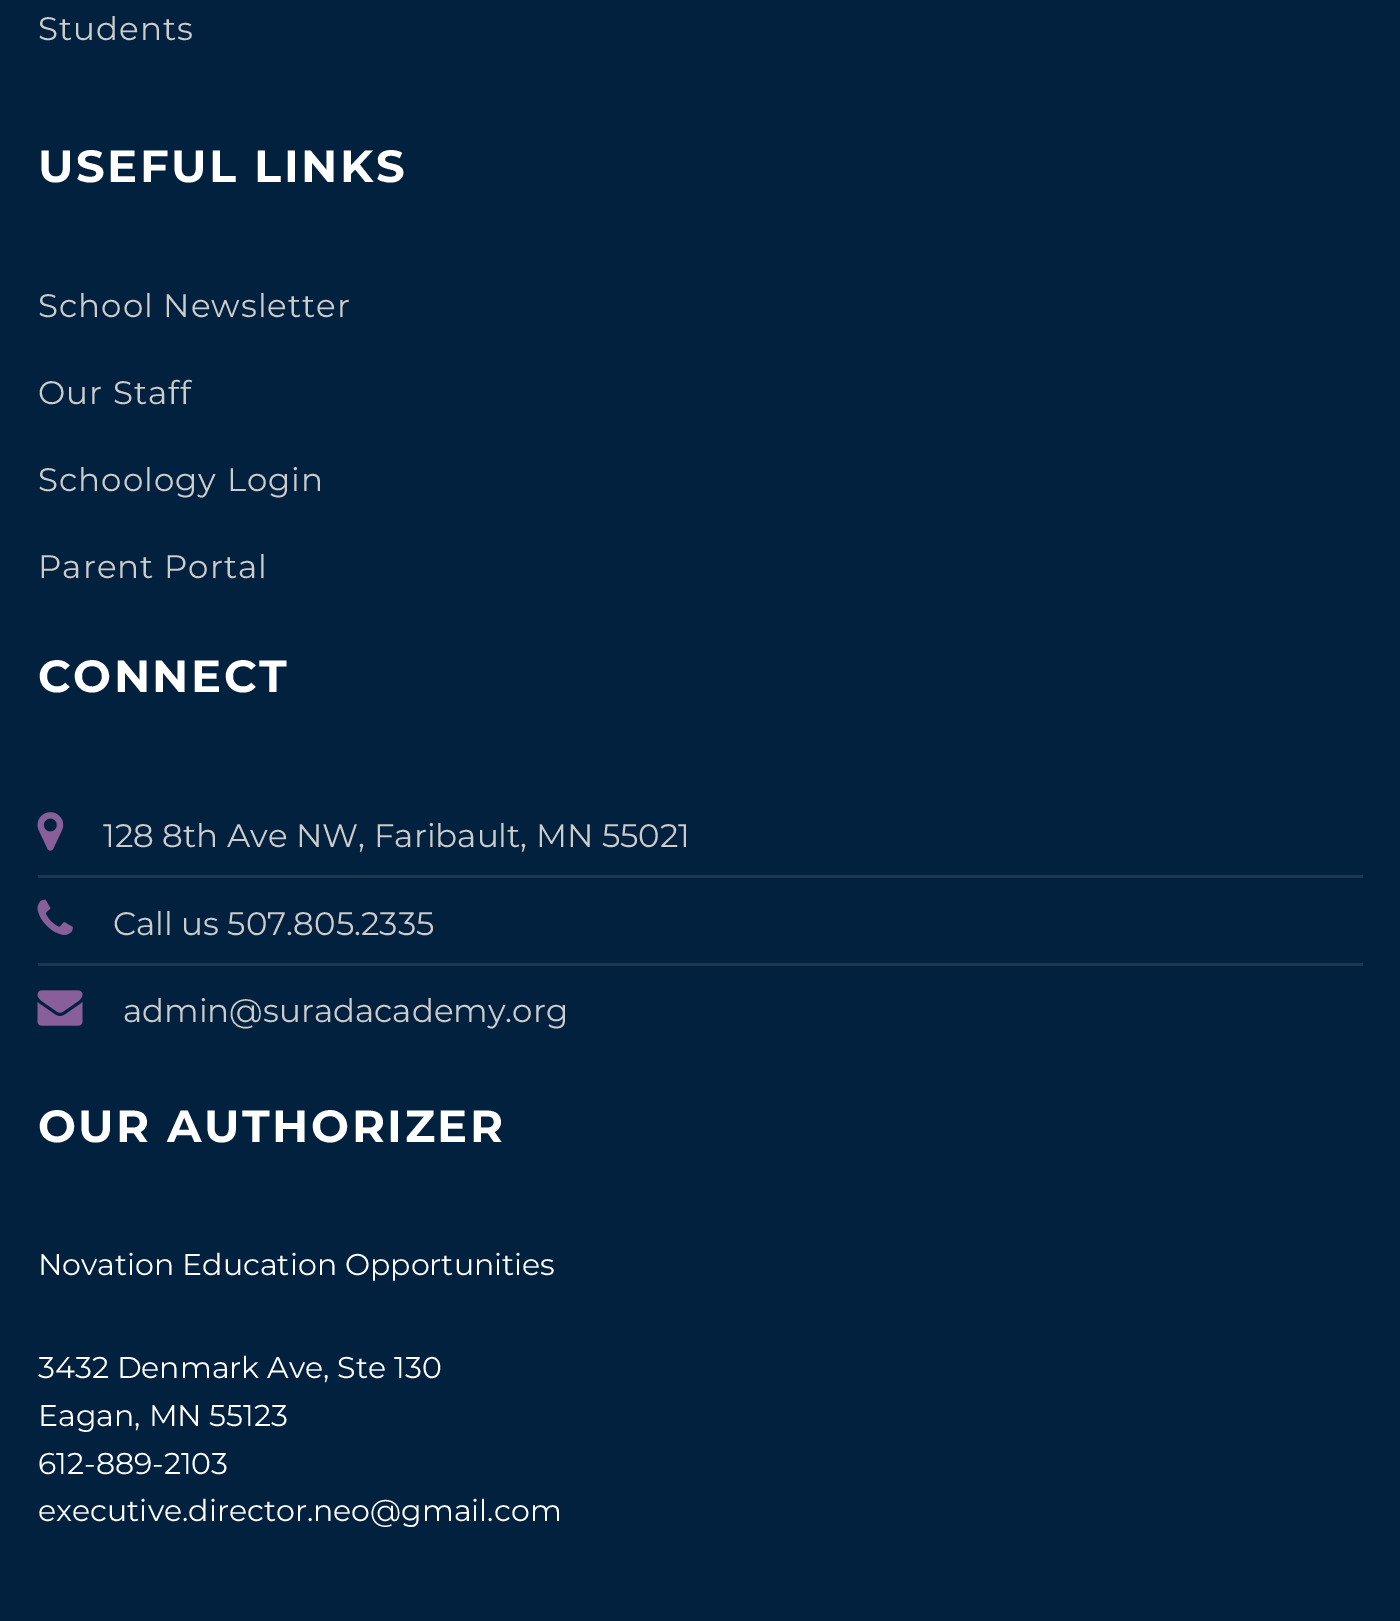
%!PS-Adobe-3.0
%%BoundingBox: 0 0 1400 1621
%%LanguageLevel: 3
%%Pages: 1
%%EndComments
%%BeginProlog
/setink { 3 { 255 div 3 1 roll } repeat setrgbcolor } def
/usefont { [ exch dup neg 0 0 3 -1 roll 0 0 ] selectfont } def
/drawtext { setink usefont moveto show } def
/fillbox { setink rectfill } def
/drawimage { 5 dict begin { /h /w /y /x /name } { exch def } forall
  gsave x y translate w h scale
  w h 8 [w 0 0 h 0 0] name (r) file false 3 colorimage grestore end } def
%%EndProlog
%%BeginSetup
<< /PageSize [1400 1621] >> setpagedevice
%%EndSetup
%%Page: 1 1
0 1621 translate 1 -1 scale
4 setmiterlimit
0 0 1400 1621 2 33 63 fillbox
/Montserrat-Regular 32.5 usefont
204 204 204 setink
38 40 moveto 1 0 (Students) ashow
/Montserrat-Bold 45 usefont
255 255 255 setink
38 182 moveto 2.5 0 (USEFUL LINKS) ashow
/Montserrat-Regular 32.5 usefont
204 204 204 setink
38 317 moveto 1 0 (School Newsletter) ashow
38 404 moveto 1 0 (Our Staff) ashow
38 491 moveto 1 0 (Schoology Login) ashow
38 578 moveto 1 0 (Parent Portal) ashow
/Montserrat-Bold 45 usefont
255 255 255 setink
38 692 moveto 2.5 0 (CONNECT) ashow
(assets/img1.rgb) 37 812 27 39 drawimage
(128 8th Ave NW, Faribault, MN 55021) 103 847 /Montserrat-Regular 32.5 204 204 204 drawtext
38 875 1325 3 27 55 82 fillbox
(assets/img2.rgb) 37 899 36 36 drawimage
(Call us 507.805.2335) 113 935 /Montserrat-Regular 32.5 204 204 204 drawtext
38 963 1325 3 27 55 82 fillbox
(assets/img3.rgb) 37 990 46 36 drawimage
(admin@suradacademy.org) 123 1022 /Montserrat-Regular 32.5 204 204 204 drawtext
/Montserrat-Bold 45 usefont
255 255 255 setink
38 1142 moveto 2.5 0 (OUR AUTHORIZER) ashow
(Novation Education Opportunities) 38 1275 /Montserrat-Regular 30 255 255 255 drawtext
(3432 Denmark Ave, Ste 130) 38 1378 /Montserrat-Regular 30 255 255 255 drawtext
(Eagan, MN 55123) 38 1426 /Montserrat-Regular 30 255 255 255 drawtext
(612-889-2103) 38 1474 /Montserrat-Regular 30 255 255 255 drawtext
(executive.director.neo@gmail.com) 38 1521 /Montserrat-Regular 30 255 255 255 drawtext
showpage
%%EOF
